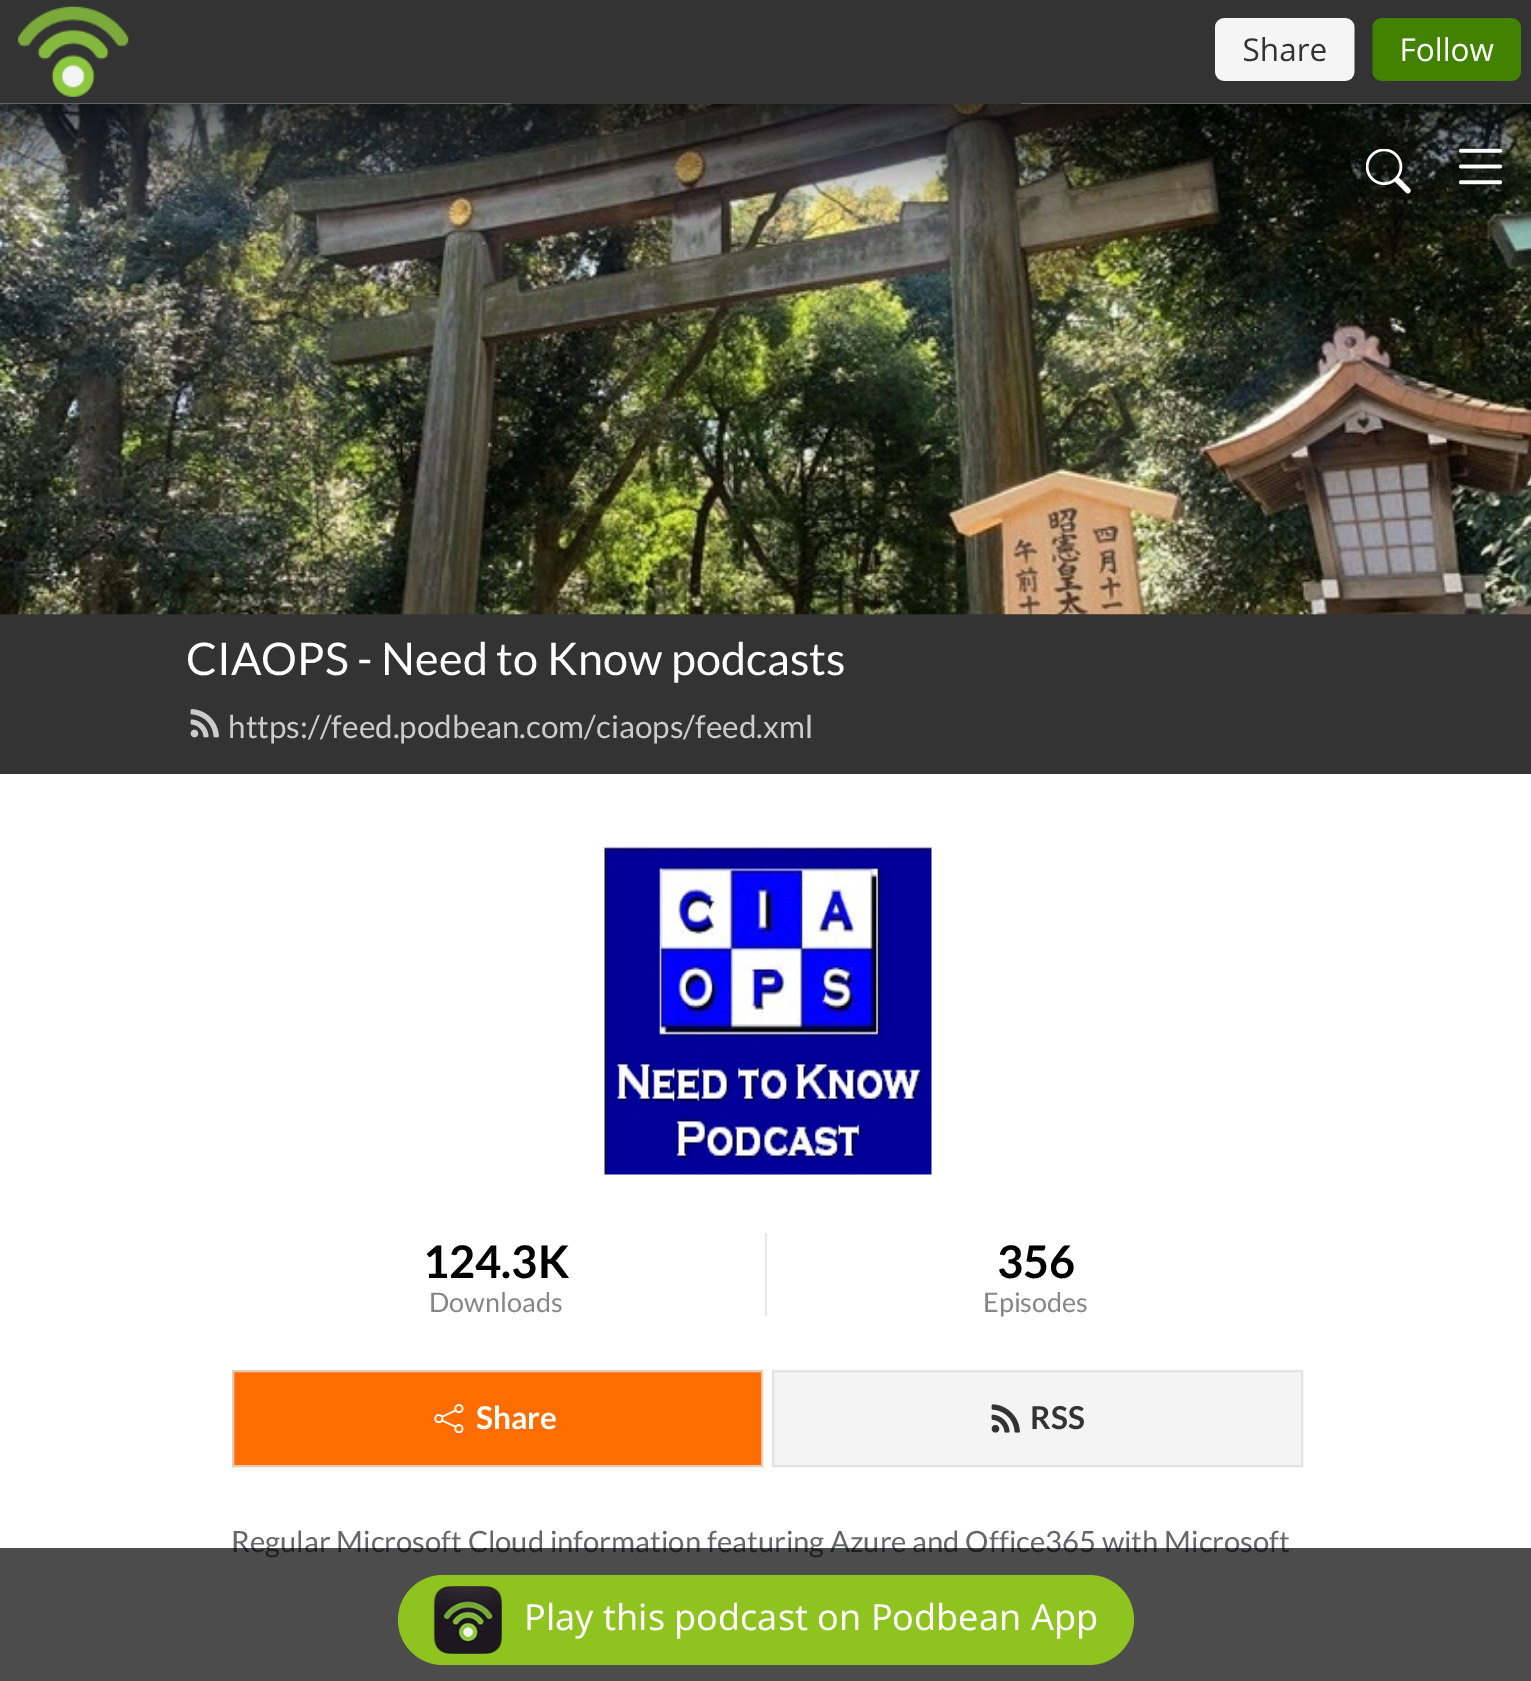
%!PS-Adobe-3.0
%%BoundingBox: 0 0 1531 1681
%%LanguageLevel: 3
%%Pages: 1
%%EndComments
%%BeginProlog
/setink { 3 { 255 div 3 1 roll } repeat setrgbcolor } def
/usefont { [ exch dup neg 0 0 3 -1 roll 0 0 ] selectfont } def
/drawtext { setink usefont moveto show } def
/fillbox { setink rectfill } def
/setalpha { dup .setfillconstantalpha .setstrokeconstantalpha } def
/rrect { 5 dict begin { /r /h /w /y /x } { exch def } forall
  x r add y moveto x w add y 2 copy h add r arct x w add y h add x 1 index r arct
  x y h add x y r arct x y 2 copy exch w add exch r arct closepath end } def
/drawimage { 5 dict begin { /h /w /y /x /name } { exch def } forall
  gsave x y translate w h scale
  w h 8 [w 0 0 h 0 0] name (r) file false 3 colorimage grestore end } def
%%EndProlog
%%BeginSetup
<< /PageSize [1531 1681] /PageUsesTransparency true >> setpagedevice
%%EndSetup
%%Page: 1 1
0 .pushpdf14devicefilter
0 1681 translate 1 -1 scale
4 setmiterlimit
0 0 1531 1681 255 255 255 fillbox
0 0 1531 6 51 51 51 fillbox
(assets/img1.rgb) 0 6 1531 98 drawimage
0 614 1531 160 51 51 51 fillbox
(assets/img4.rgb) 0 104 1531 511 drawimage
(assets/img2.rgb) 1366 149 45 45 drawimage
(assets/img3.rgb) 1458 148 45 37 drawimage
(CIAOPS - Need to Know podcasts) 186 675 /Lato-Regular 45 255 255 255 drawtext
(assets/img5.rgb) 190 709 29 29 drawimage
(https://feed.podbean.com/ciaops/feed.xml) 228 738 /Lato-Regular 31.5 204 204 204 drawtext
(assets/img6.rgb) 603 846 329 329 drawimage
(124.3K) 423 1278 /Lato-Bold 45 0 0 0 drawtext
(Downloads) 429 1312 /Lato-Regular 27 134 134 134 drawtext
765 1233 2 83 230 230 230 fillbox
(356) 997 1278 /Lato-Bold 45 0 0 0 drawtext
(Episodes) 983 1312 /Lato-Regular 27 134 134 134 drawtext
255 109 0 setink
233 1371 moveto 762 1371 lineto 762 1466 lineto 233 1466 lineto closepath gsave fill grestore
232 203 181 setink
2 setlinewidth
stroke
(assets/img7.rgb) 434 1404 30 29 drawimage
(Share) 476 1429 /Lato-Bold 31.5 255 255 255 drawtext
244 244 244 setink
773 1371 moveto 1302 1371 lineto 1302 1466 lineto 773 1466 lineto closepath gsave fill grestore
226 226 226 setink
stroke
(assets/img8.rgb) 991 1404 29 29 drawimage
(RSS) 1030 1429 /Lato-Bold 31.5 51 51 51 drawtext
(Regular Microsoft Cloud information featuring Azure and Office365 with Microsoft) 231 1552 /Lato-Regular 29.25 100 102 105 drawtext
0.7 setalpha
0 1548 1531 133 0 0 0 fillbox
1 setalpha
143 195 31 setink
398 1575 736 90 45 rrect fill
(assets/img9.rgb) 433 1586 69 68 drawimage
(Play this podcast on Podbean App) 524 1630 /NotoSans-Regular 36 255 255 255 drawtext
.poppdf14devicefilter showpage
%%EOF
